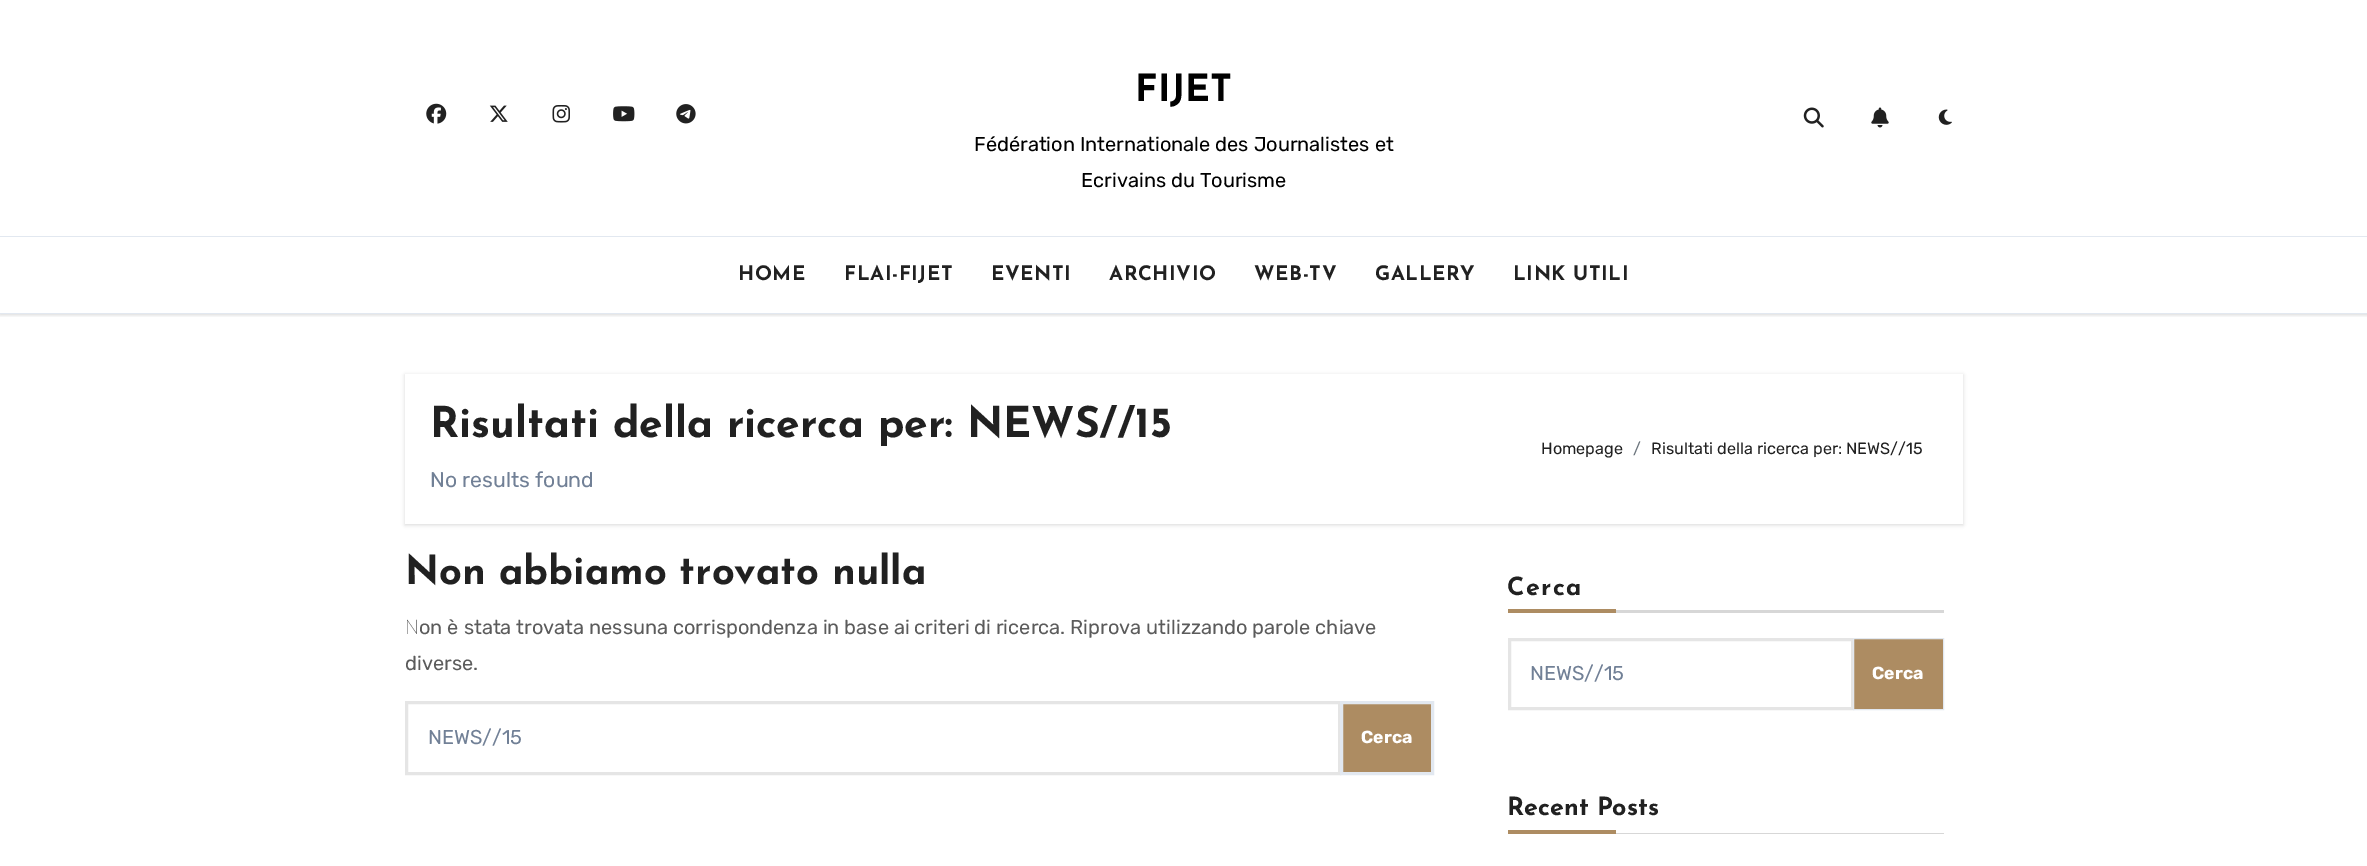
%!PS-Adobe-3.0
%%BoundingBox: 0 0 2367 866
%%LanguageLevel: 3
%%Pages: 1
%%EndComments
%%BeginProlog
/setink { 3 { 255 div 3 1 roll } repeat setrgbcolor } def
/usefont { [ exch dup neg 0 0 3 -1 roll 0 0 ] selectfont } def
/drawtext { setink usefont moveto show } def
/fillbox { setink rectfill } def
/setalpha { dup .setfillconstantalpha .setstrokeconstantalpha } def
/rrect { 5 dict begin { /r /h /w /y /x } { exch def } forall
  x r add y moveto x w add y 2 copy h add r arct x w add y h add x 1 index r arct
  x y h add x y r arct x y 2 copy exch w add exch r arct closepath end } def
/softshadow { 12 dict begin { /a /b /q /h /w /y /x } { exch def } forall gsave /was 0 def
  9 -2 -9 { dup b mul 4 div /e exch def 1 sub .425 mul 2.718 exch exp 1 add a .99 .min exch div /now exch def
    1 1 now sub 1 was sub div sub setalpha /was now def
    w h .min e 2 mul add 0 gt { x e sub y e sub w e 2 mul add h e 2 mul add
      q e add b .6 mul add w h .min 2 div e add .min 0 .max rrect fill } if } for grestore end } def
/drawimage { 5 dict begin { /h /w /y /x /name } { exch def } forall
  gsave x y translate w h scale
  w h 8 [w 0 0 h 0 0] name (r) file false 3 colorimage grestore end } def
%%EndProlog
%%BeginSetup
<< /PageSize [2367 866] /PageUsesTransparency true >> setpagedevice
%%EndSetup
%%Page: 1 1
0 .pushpdf14devicefilter
0 866 translate 1 -1 scale
4 setmiterlimit
0 0 2367 866 255 255 255 fillbox
(assets/img1.rgb) 426 103 21 21 drawimage
(assets/img2.rgb) 489 105 19 17 drawimage
(assets/img3.rgb) 552 105 18 18 drawimage
(assets/img4.rgb) 613 106 22 16 drawimage
(assets/img5.rgb) 676 104 20 20 drawimage
(FIJET) 1135 101 /JosefinSans-Bold 37.5 0 0 0 drawtext
(Fédération Internationale des Journalistes et) 974 151 /Rubik-Light 20 0 0 0 drawtext
(Ecrivains du Tourisme) 1081 187 /Rubik-Light 20 0 0 0 drawtext
(assets/img6.rgb) 1803 107 21 21 drawimage
(assets/img7.rgb) 1871 107 18 21 drawimage
(assets/img8.rgb) 1938 109 14 16 drawimage
gsave
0 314 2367 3 rectclip
0 238 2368 77 0 2 0.15 softshadow
grestore
0 236 2367 1 226 232 240 fillbox
0 313 2367 1 226 232 240 fillbox
/JosefinSans-Bold 20 usefont
33 33 33 setink
738 280 moveto 0.6 0 (HOME) ashow
844 280 moveto 0.6 0 (FLAI-FIJET) ashow
991 280 moveto 0.6 0 (EVENTI) ashow
1109 280 moveto 0.6 0 (ARCHIVIO) ashow
1254 280 moveto 0.6 0 (WEB-TV) ashow
1375 280 moveto 0.6 0 (GALLERY) ashow
1513 280 moveto 0.6 0 (LINK UTILI) ashow
0 0 0 setink
405 375 1558 150 0 2 0.15 softshadow
405 374 1558 150 255 255 255 fillbox
(Risultati della ricerca per: NEWS//15) 430 437 /JosefinSans-Bold 42.5 33 33 33 drawtext
(No results found) 430 487 /Rubik-Light 21.25 113 128 150 drawtext
(Homepage) 1541 454 /Rubik-Light 16.25 33 33 33 drawtext
(/) 1633 454 /Rubik-Light 16.25 108 117 125 drawtext
(Risultati della ricerca per: NEWS//15) 1651 454 /Rubik-Light 16.25 33 33 33 drawtext
(Non abbiamo trovato nulla) 405 584 /JosefinSans-Bold 40 33 33 33 drawtext
(N) 405 634 /NotoSans-Thin 20 91 91 91 drawtext
(on è stata trovata nessuna corrispondenza in base ai criteri di ricerca. Riprova utilizzando parole chiave) 419 634 /Rubik-Light 20 91 91 91 drawtext
(diverse.) 405 670 /Rubik-Light 20 91 91 91 drawtext
229 229 229 setink
3 setlinewidth
406.5 702.5 933 71 rectstroke
(NEWS//15) 428 744 /Rubik-Light 20 113 128 150 drawtext
173 140 98 setink
1341.5 702.5 moveto 1432.5 702.5 lineto 1432.5 773.5 lineto 1341.5 773.5 lineto closepath gsave fill grestore
226 232 240 setink
stroke
(Cerca) 1361 743 /Rubik-Bold 17.5 255 255 255 drawtext
1616 610 328 3 215 215 215 fillbox
/JosefinSans-Bold 25 usefont
33 33 33 setink
1507 595 moveto 1.5 0 (Cerca) ashow
1508 609 108 4 173 140 98 fillbox
229 229 229 setink
1509.5 639.5 343 69 rectstroke
(NEWS//15) 1530 680 /Rubik-Light 20 113 128 150 drawtext
173 140 98 setink
1853.5 638.5 moveto 1943.5 638.5 lineto 1943.5 709.5 lineto 1853.5 709.5 lineto closepath gsave fill grestore
226 232 240 setink
1 setlinewidth
stroke
(Cerca) 1872 679 /Rubik-Bold 17.5 255 255 255 drawtext
1616 833 328 1 215 215 215 fillbox
(Recent Posts) 1507 815 /JosefinSans-Bold 25 33 33 33 drawtext
1508 830 108 4 173 140 98 fillbox
.poppdf14devicefilter showpage
%%EOF
